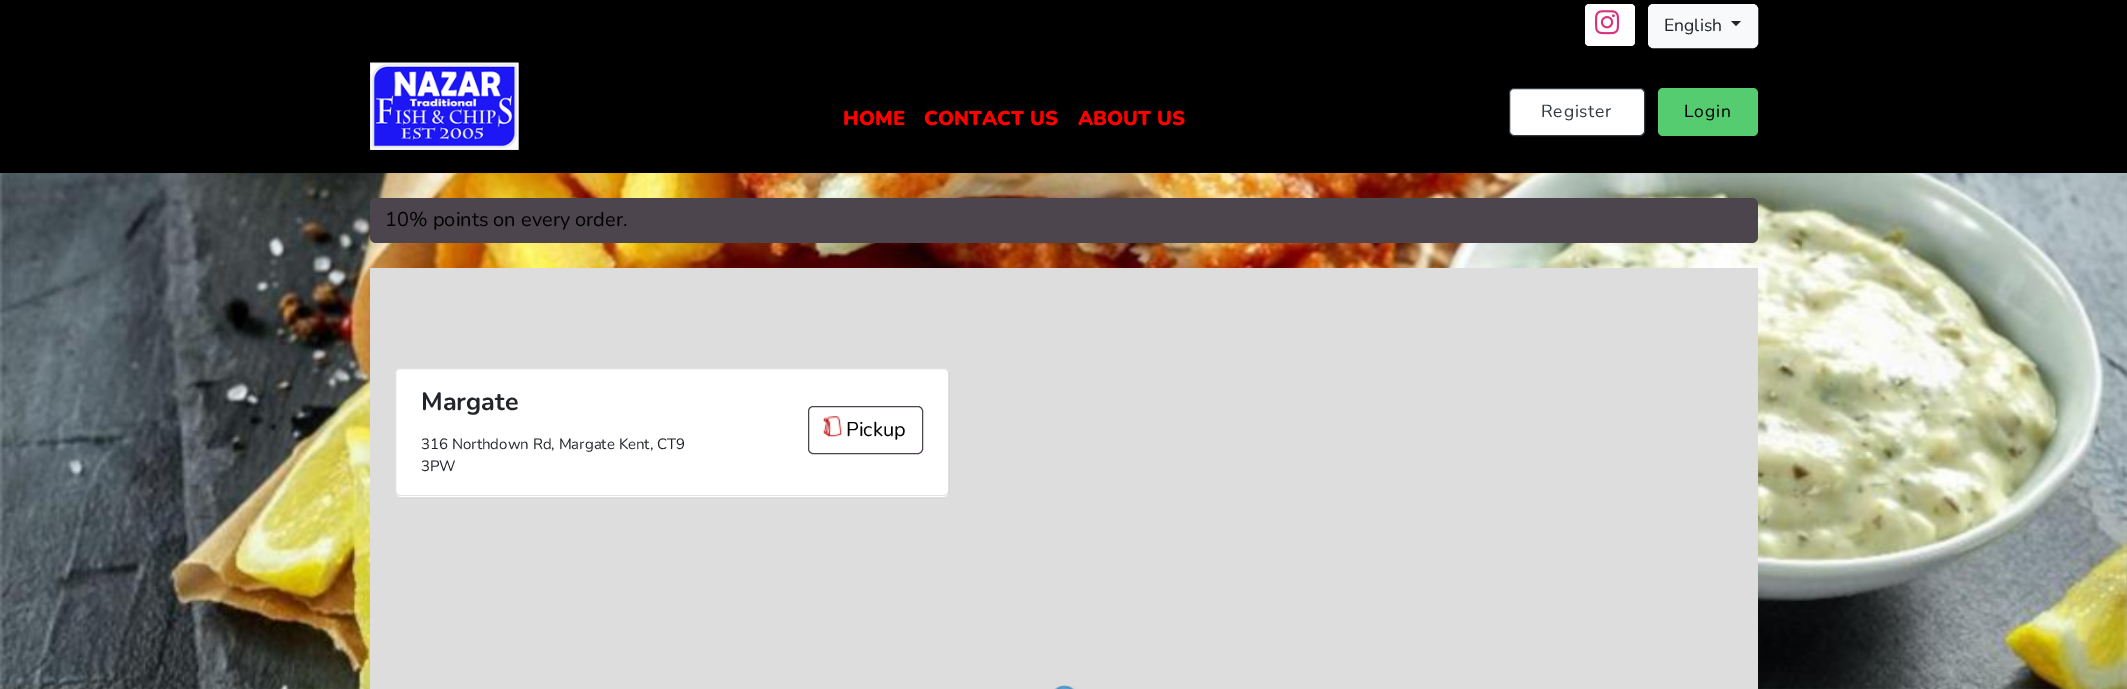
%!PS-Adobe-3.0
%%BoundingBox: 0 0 2127 689
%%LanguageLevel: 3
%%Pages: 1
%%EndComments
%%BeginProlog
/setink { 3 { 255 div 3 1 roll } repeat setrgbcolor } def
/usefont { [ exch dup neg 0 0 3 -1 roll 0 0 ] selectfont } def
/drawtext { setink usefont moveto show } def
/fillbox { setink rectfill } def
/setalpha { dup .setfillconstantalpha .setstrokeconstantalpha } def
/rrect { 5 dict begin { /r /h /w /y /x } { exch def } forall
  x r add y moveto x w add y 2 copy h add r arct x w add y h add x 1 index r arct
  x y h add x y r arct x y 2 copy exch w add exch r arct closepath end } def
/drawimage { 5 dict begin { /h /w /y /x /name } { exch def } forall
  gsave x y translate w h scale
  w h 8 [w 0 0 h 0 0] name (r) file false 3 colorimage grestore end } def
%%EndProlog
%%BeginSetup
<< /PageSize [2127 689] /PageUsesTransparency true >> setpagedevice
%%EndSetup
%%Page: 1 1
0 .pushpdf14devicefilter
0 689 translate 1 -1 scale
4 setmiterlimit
0 0 2127 689 255 255 255 fillbox
0 0 2127 173 0 0 0 fillbox
255 255 255 setink
1585 4 50 42 4 rrect fill
(assets/img1.rgb) 1595 10 25 25 drawimage
248 249 250 setink
1648.5 4.5 109 43 4.5 rrect gsave fill grestore
stroke
(English) 1664 31 /Nunito-ExtraLight 17.5 33 37 41 drawtext
1731 21 moveto 1741 21 lineto 1736 26 lineto closepath fill
(assets/img2.rgb) 370 62 149 88 drawimage
(HOME) 843 125 /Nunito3-ExtraLight 20 255 0 0 drawtext
(CONTACT US) 924 125 /Nunito3-ExtraLight 20 255 0 0 drawtext
(ABOUT US) 1078 125 /Nunito3-ExtraLight 20 255 0 0 drawtext
255 255 255 setink
1509.5 88.5 135 47 4.5 rrect gsave fill grestore
52 58 64 setink
stroke
/Nunito-ExtraLight 17.5 usefont
1541 117 moveto 0.75 0 (Register) ashow
86 204 113 setink
1658 88 100 48 5 rrect fill
0 0 0 setink
1684 117 moveto 0.75 0 (Login) ashow
(assets/img3.rgb) 0 173 2127 516 drawimage
77 69 77 setink
370 198 1388 45 6 rrect fill
(10% points on every order.) 385 226 /Nunito-ExtraLight 20 0 0 0 drawtext
370 268 1388 421 221 221 221 fillbox
(assets/img4.rgb) 1054 685 21 4 drawimage
255 255 255 setink
395 368 554 130 5 rrect fill
227 227 227 setink
396 491 moveto 396 492 lineto 396 494 398 496 400 496 curveto 944 496 lineto 946 496 948 494 948 492 curveto 948 491 lineto 948 493 946 495 944 495 curveto 400 495 lineto 398 495 396 493 396 491 curveto closepath fill
0.12 setalpha
0 0 0 setink
395.5 368.5 553 129 4.5 rrect stroke
1 setalpha
(Margate) 421 410 /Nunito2-ExtraLight 25 33 37 41 drawtext
(316 Northdown Rd, Margate Kent, CT9) 421 449 /Nunito-ExtraLight 15 33 37 41 drawtext
(3PW) 421 471 /Nunito-ExtraLight 15 33 37 41 drawtext
77 69 77 setink
808.5 406.5 114 47 4.5 rrect stroke
(assets/img5.rgb) 823 416 19 21 drawimage
(Pickup) 846 436 /Nunito-ExtraLight 20 0 0 0 drawtext
.poppdf14devicefilter showpage
%%EOF
